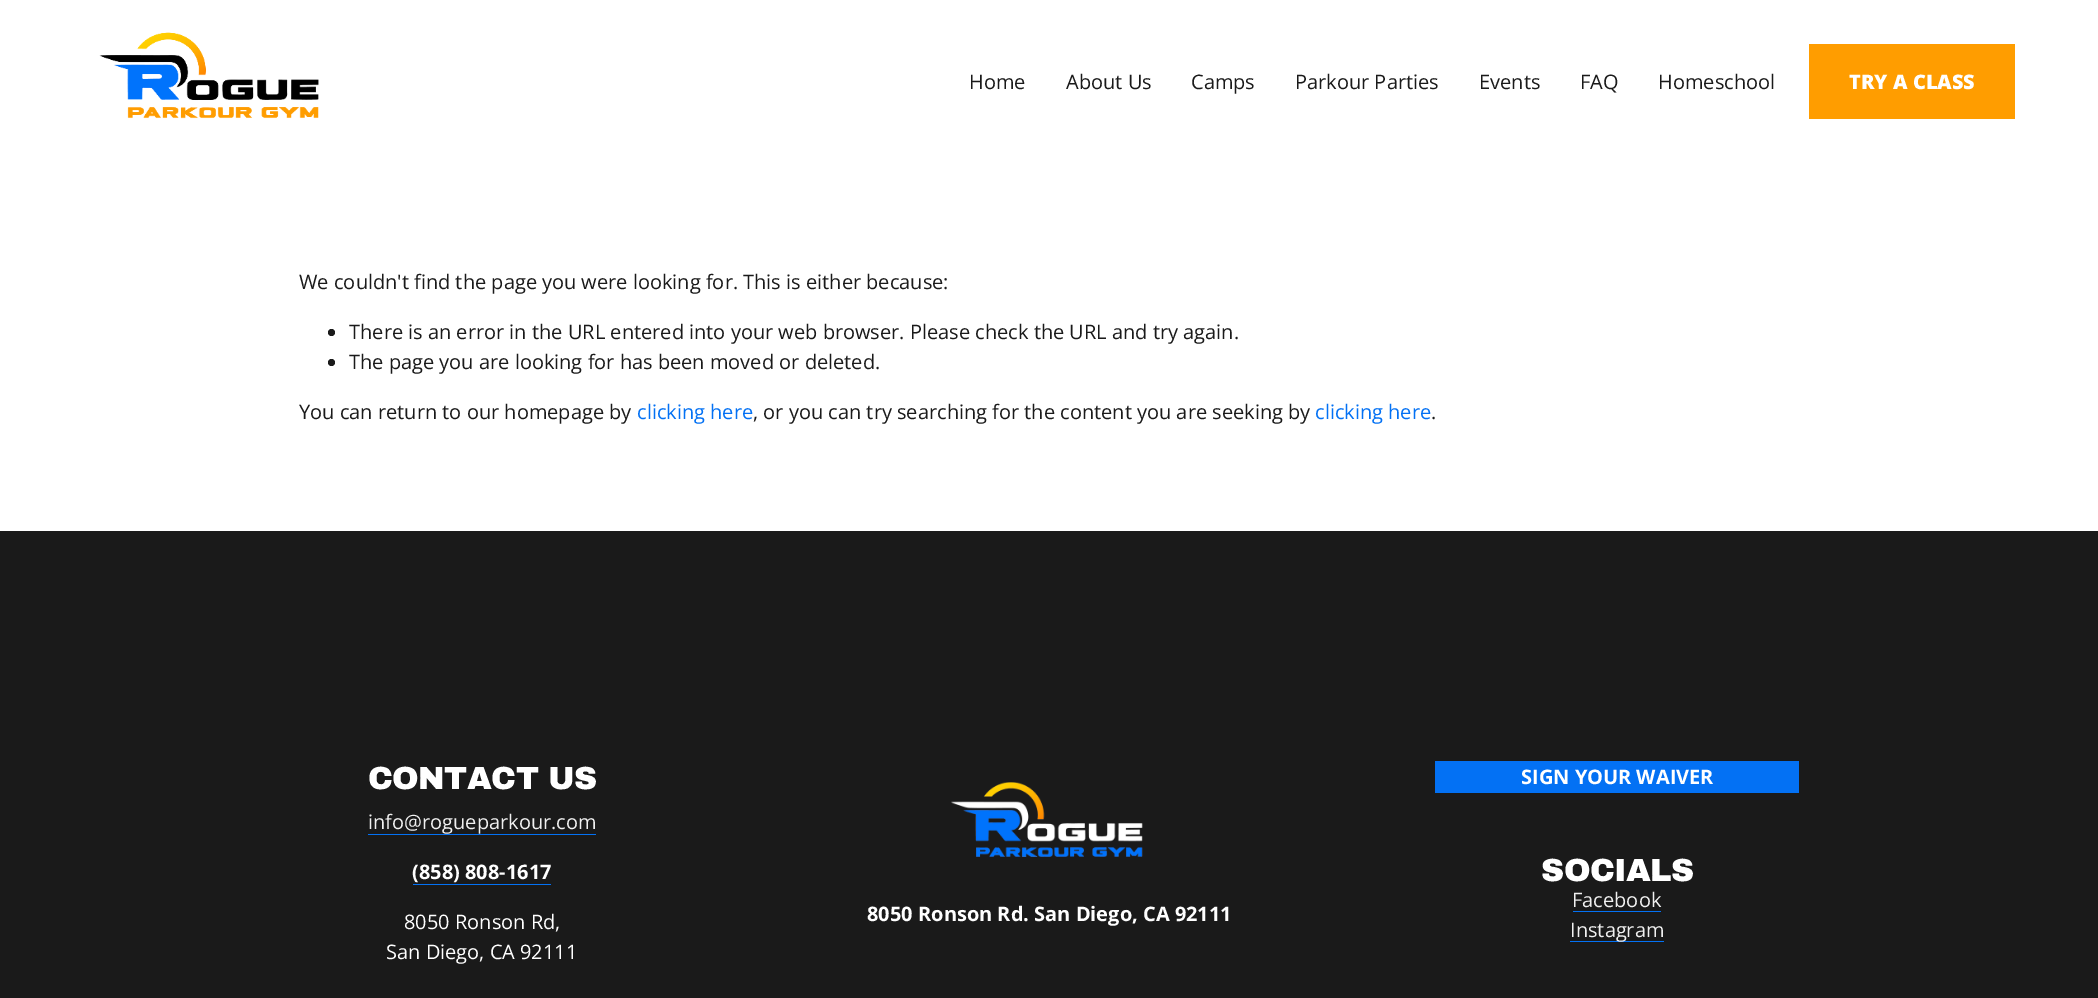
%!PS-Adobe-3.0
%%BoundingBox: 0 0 2098 998
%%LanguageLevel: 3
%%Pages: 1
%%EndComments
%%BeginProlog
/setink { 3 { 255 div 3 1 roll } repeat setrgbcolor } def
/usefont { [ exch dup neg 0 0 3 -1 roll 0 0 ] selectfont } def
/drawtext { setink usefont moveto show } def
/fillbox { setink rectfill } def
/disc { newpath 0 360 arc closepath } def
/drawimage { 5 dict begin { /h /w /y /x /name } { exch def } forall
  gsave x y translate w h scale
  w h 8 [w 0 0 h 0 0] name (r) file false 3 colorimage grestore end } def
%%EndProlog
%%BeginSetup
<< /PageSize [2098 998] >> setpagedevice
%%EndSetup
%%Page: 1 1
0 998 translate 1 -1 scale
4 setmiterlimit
0 0 2098 998 255 255 255 fillbox
(assets/img1.rgb) 99 32 220 87 drawimage
(Home) 969 89 /OpenSans-Regular 20 26 26 26 drawtext
(About Us) 1066 89 /OpenSans-Regular 20 26 26 26 drawtext
(Camps) 1191 89 /OpenSans-Regular 20 26 26 26 drawtext
(Parkour Parties) 1295 89 /OpenSans-Regular 20 26 26 26 drawtext
(Events) 1479 89 /OpenSans-Regular 20 26 26 26 drawtext
(FAQ) 1580 89 /OpenSans-Regular 20 26 26 26 drawtext
(Homeschool) 1658 89 /OpenSans-Regular 20 26 26 26 drawtext
1809 44 206 75 255 157 0 fillbox
(TRY A CLASS) 1849 89 /OpenSans-ExtraBold 20 255 255 255 drawtext
(We couldn't find the page you were looking for. This is either because:) 299 289 /OpenSans-Regular 20 26 26 26 drawtext
331.5 332.5 3.5 disc fill
(There is an error in the URL entered into your web browser. Please check the URL and try again.) 349 339 /OpenSans-Regular 20 26 26 26 drawtext
331.5 362.5 3.5 disc fill
(The page you are looking for has been moved or deleted.) 349 369 /OpenSans-Regular 20 26 26 26 drawtext
(You can return to our homepage by) 299 419 /OpenSans-Regular 20 26 26 26 drawtext
(clicking here) 637 419 /OpenSans-Regular 20 3 113 244 drawtext
(, or you can try searching for the content you are seeking by) 753 419 /OpenSans-Regular 20 26 26 26 drawtext
(clicking here) 1315 419 /OpenSans-Regular 20 3 113 244 drawtext
(.) 1431 419 /OpenSans-Regular 20 26 26 26 drawtext
0 531 2098 467 26 26 26 fillbox
/ArchivoBlack-Black 32 usefont
255 255 255 setink
368 789 moveto -0.6 0 (CONTACT US) ashow
1435 761 364 32 3 113 244 fillbox
(SIGN YOUR WAIVER) 1521 784 /OpenSans-Bold 20 255 255 255 drawtext
(info@rogueparkour.com) 368 829 /OpenSans-Regular 20 240 240 240 drawtext
368 834 228 1 3 113 244 fillbox
(\(858\) 808-1617) 412 879 /OpenSans-Bold 20 255 255 255 drawtext
413 884 138 1 3 113 244 fillbox
(8050 Ronson Rd,) 404 929 /OpenSans-Regular 20 255 255 255 drawtext
(San Diego, CA 92111) 386 959 /OpenSans-Regular 20 255 255 255 drawtext
(assets/img2.rgb) 951 782 192 75 drawimage
/ArchivoBlack-Black 32 usefont
1541 881 moveto -0.6 0 (SOCIALS) ashow
(8050 Ronson Rd. San Diego, CA 92111) 867 921 /OpenSans-Bold 20 255 255 255 drawtext
(Facebook) 1572 907 /OpenSans-Regular 20 240 240 240 drawtext
1573 911 88 1 3 113 244 fillbox
1570 941 94 1 3 113 244 fillbox
(Instagram) 1570 937 /OpenSans-Regular 20 240 240 240 drawtext
showpage
%%EOF
